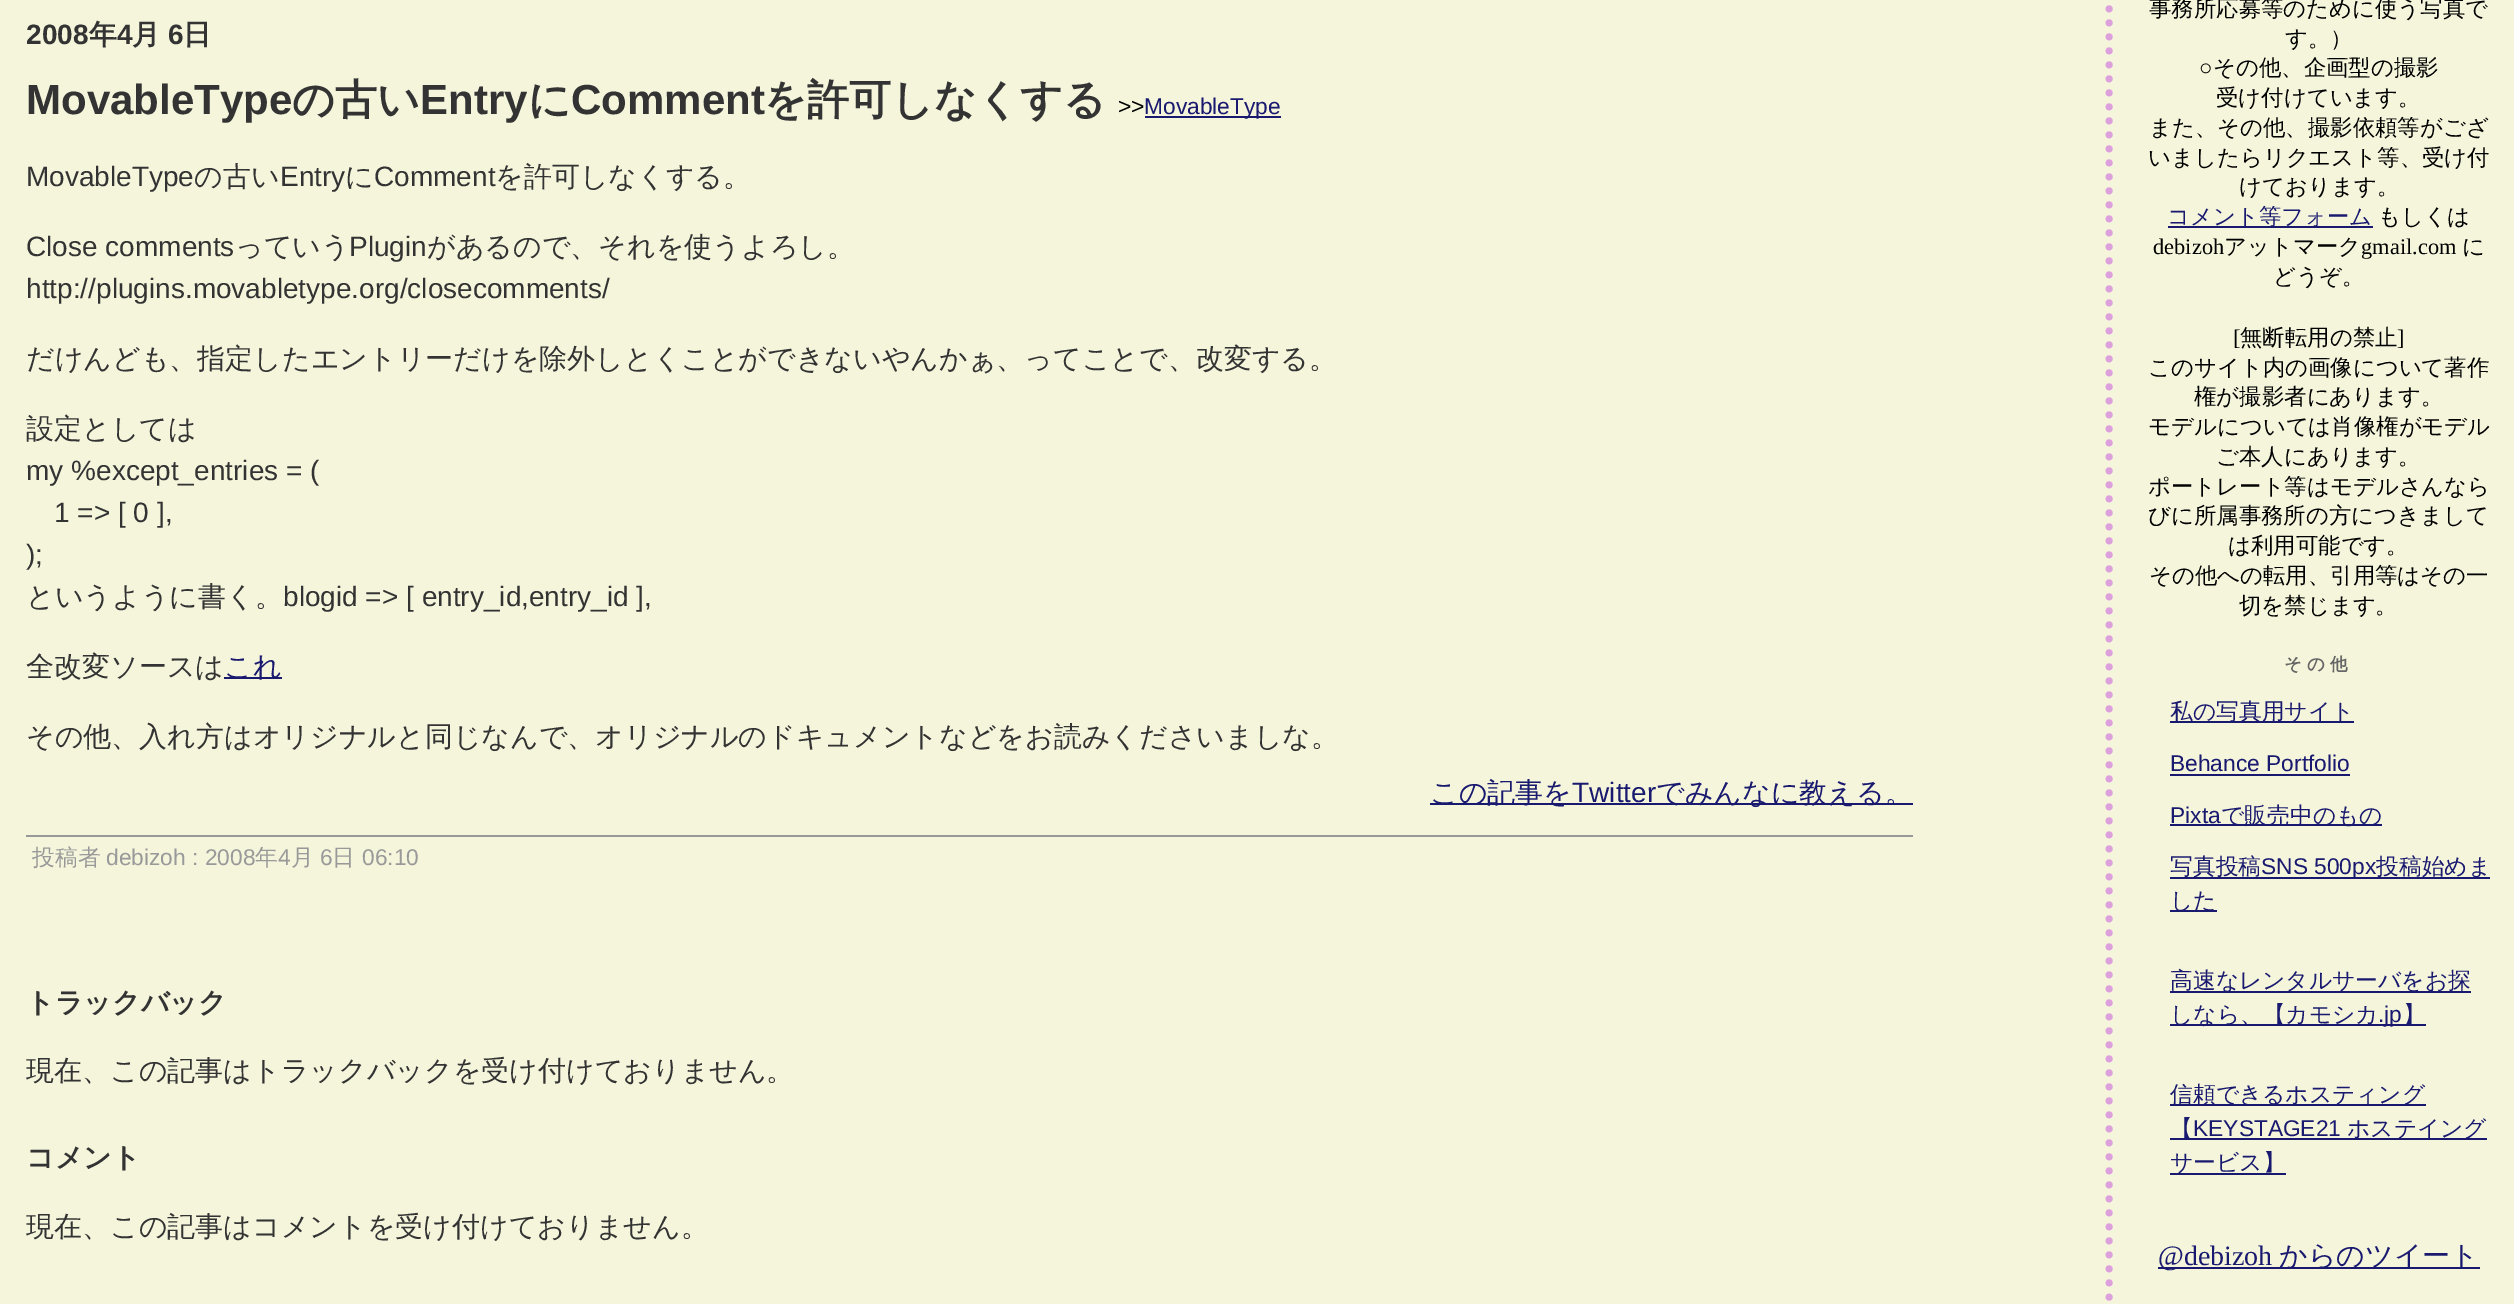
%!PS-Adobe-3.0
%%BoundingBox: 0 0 2514 1304
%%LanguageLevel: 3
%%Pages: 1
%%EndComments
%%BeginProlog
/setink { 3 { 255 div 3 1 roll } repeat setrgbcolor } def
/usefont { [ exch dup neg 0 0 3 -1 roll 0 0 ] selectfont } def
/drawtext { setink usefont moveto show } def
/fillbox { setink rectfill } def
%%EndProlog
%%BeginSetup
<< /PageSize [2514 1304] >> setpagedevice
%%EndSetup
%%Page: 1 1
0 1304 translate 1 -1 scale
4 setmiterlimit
0 0 2514 1304 245 245 220 fillbox
(2008) 26 44 /LiberationSans-Bold 28 51 51 51 drawtext
(年) 89 44 /WenQuanYiZenHei-Bold 28 51 51 51 drawtext
(4) 117 44 /LiberationSans-Bold 28 51 51 51 drawtext
(月) 132 44 /WenQuanYiZenHei-Bold 28 51 51 51 drawtext
(6) 168 44 /LiberationSans-Bold 28 51 51 51 drawtext
(日) 183 44 /WenQuanYiZenHei-Bold 28 51 51 51 drawtext
(MovableType) 26 114 /LiberationSans-Bold 42 51 51 51 drawtext
(の古い) 292 114 /WenQuanYiZenHei-Bold 42 51 51 51 drawtext
(Entry) 420 114 /LiberationSans-Bold 42 51 51 51 drawtext
(に) 528 114 /WenQuanYiZenHei-Bold 42 51 51 51 drawtext
(Comment) 571 114 /LiberationSans-Bold 42 51 51 51 drawtext
(を許可しなくする) 764 114 /WenQuanYiZenHei-Bold 42 51 51 51 drawtext
(>>) 1118 114 /LiberationSans-Regular 22.75 0 0 0 drawtext
1145 116 136 2 25 25 112 fillbox
(MovableType) 1144 114 /LiberationSans-Regular 22.75 25 25 112 drawtext
(MovableType) 26 186 /LiberationSans-Regular 28 51 51 51 drawtext
(の古い) 194 186 /WenQuanYiZenHei-Medium 28 51 51 51 drawtext
(Entry) 280 186 /LiberationSans-Regular 28 51 51 51 drawtext
(に) 345 186 /WenQuanYiZenHei-Medium 28 51 51 51 drawtext
(Comment) 374 186 /LiberationSans-Regular 28 51 51 51 drawtext
(を許可しなくする。) 495 186 /WenQuanYiZenHei-Medium 28 51 51 51 drawtext
(Close comments) 26 256 /LiberationSans-Regular 28 51 51 51 drawtext
(っていう) 235 256 /WenQuanYiZenHei-Medium 28 51 51 51 drawtext
(Plugin) 349 256 /LiberationSans-Regular 28 51 51 51 drawtext
(があるので、それを使うよろし。) 427 256 /WenQuanYiZenHei-Medium 28 51 51 51 drawtext
(http://plugins.movabletype.org/closecomments/) 26 298 /LiberationSans-Regular 28 51 51 51 drawtext
(だけんども、指定したエントリーだけを除外しとくことができないやんかぁ、ってことで、改変する。) 26 368 /WenQuanYiZenHei-Medium 28 51 51 51 drawtext
(設定としては) 26 438 /WenQuanYiZenHei-Medium 28 51 51 51 drawtext
(my %except_entries = \() 26 480 /LiberationSans-Regular 28 51 51 51 drawtext
(1 => [ 0 ],) 54 522 /LiberationSans-Regular 28 51 51 51 drawtext
(\);) 26 564 /LiberationSans-Regular 28 51 51 51 drawtext
(というように書く。) 26 606 /WenQuanYiZenHei-Medium 28 51 51 51 drawtext
(blogid => [ entry_id,entry_id ],) 283 606 /LiberationSans-Regular 28 51 51 51 drawtext
(全改変ソースは) 26 676 /WenQuanYiZenHei-Medium 28 51 51 51 drawtext
224 677 58 2 25 25 112 fillbox
(これ) 224 676 /WenQuanYiZenHei-Medium 28 25 25 112 drawtext
(その他、入れ方はオリジナルと同じなんで、オリジナルのドキュメントなどをお読みくださいましな。) 26 746 /WenQuanYiZenHei-Medium 28 51 51 51 drawtext
1430 803 483 2 25 25 112 fillbox
(この記事を) 1430 802 /WenQuanYiZenHei-Medium 28 25 25 112 drawtext
(Twitter) 1572 802 /LiberationSans-Regular 28 25 25 112 drawtext
(でみんなに教える。) 1656 802 /WenQuanYiZenHei-Medium 28 25 25 112 drawtext
26 835 1887 2 153 153 153 fillbox
(投稿者) 32 865 /WenQuanYiZenHei-Medium 22.75 153 153 153 drawtext
(debizoh : 2008) 106 865 /LiberationSans-Regular 22.75 153 153 153 drawtext
(年) 255 865 /WenQuanYiZenHei-Medium 22.75 153 153 153 drawtext
(4) 278 865 /LiberationSans-Regular 22.75 153 153 153 drawtext
(月) 291 865 /WenQuanYiZenHei-Medium 22.75 153 153 153 drawtext
(6) 320 865 /LiberationSans-Regular 22.75 153 153 153 drawtext
(日) 332 865 /WenQuanYiZenHei-Medium 22.75 153 153 153 drawtext
(06:10) 362 865 /LiberationSans-Regular 22.75 153 153 153 drawtext
(トラックバック) 26 1012 /WenQuanYiZenHei-Bold 28 51 51 51 drawtext
(現在、この記事はトラックバックを受け付けておりません。) 26 1080 /WenQuanYiZenHei-Medium 28 51 51 51 drawtext
(コメント) 26 1167 /WenQuanYiZenHei-Bold 28 51 51 51 drawtext
(現在、この記事はコメントを受け付けておりません。) 26 1236 /WenQuanYiZenHei-Medium 28 51 51 51 drawtext
221 160 221 setink
7 setlinewidth
1 setlinecap
[0 14] 0 setdash
2109 -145 moveto 2109 1297 lineto stroke
(事務所応募等のために使う写真で) 2149 16 /WenQuanYiZenHei-Medium 22.4 0 0 0 drawtext
(す。）) 2285 46 /WenQuanYiZenHei-Medium 22.4 0 0 0 drawtext
(○) 2199 75 /LiberationSerif-Regular 22.4 0 0 0 drawtext
(その他、企画型の撮影) 2213 75 /WenQuanYiZenHei-Medium 22.4 0 0 0 drawtext
(受け付けています。) 2216 105 /WenQuanYiZenHei-Medium 22.4 0 0 0 drawtext
(また、その他、撮影依頼等がござ) 2149 135 /WenQuanYiZenHei-Medium 22.4 0 0 0 drawtext
(いましたらリクエスト等、受け付) 2148 165 /WenQuanYiZenHei-Medium 22.4 0 0 0 drawtext
(けております。) 2239 194 /WenQuanYiZenHei-Medium 22.4 0 0 0 drawtext
2168 226 205 2 25 25 112 fillbox
(コメント等フォーム) 2167 224 /WenQuanYiZenHei-Medium 22.4 25 25 112 drawtext
(もしくは) 2378 224 /WenQuanYiZenHei-Medium 22.4 0 0 0 drawtext
(debizoh) 2153 254 /LiberationSerif-Regular 22.4 0 0 0 drawtext
(アットマーク) 2224 254 /WenQuanYiZenHei-Medium 22.4 0 0 0 drawtext
(gmail.com) 2361 254 /LiberationSerif-Regular 22.4 0 0 0 drawtext
(に) 2462 254 /WenQuanYiZenHei-Medium 22.4 0 0 0 drawtext
(どうぞ。) 2273 284 /WenQuanYiZenHei-Medium 22.4 0 0 0 drawtext
([) 2233 345 /LiberationSerif-Regular 22.4 0 0 0 drawtext
(無断転用の禁止) 2240 345 /WenQuanYiZenHei-Medium 22.4 0 0 0 drawtext
(]) 2397 345 /LiberationSerif-Regular 22.4 0 0 0 drawtext
(このサイト内の画像について著作) 2148 375 /WenQuanYiZenHei-Medium 22.4 0 0 0 drawtext
(権が撮影者にあります。) 2194 404 /WenQuanYiZenHei-Medium 22.4 0 0 0 drawtext
(モデルについては肖像権がモデル) 2148 434 /WenQuanYiZenHei-Medium 22.4 0 0 0 drawtext
(ご本人にあります。) 2216 464 /WenQuanYiZenHei-Medium 22.4 0 0 0 drawtext
(ポートレート等はモデルさんなら) 2148 494 /WenQuanYiZenHei-Medium 22.4 0 0 0 drawtext
(びに所属事務所の方につきまして) 2148 523 /WenQuanYiZenHei-Medium 22.4 0 0 0 drawtext
(は利用可能です。) 2228 553 /WenQuanYiZenHei-Medium 22.4 0 0 0 drawtext
(その他への転用、引用等はその一) 2149 583 /WenQuanYiZenHei-Medium 22.4 0 0 0 drawtext
(切を禁じます。) 2239 613 /WenQuanYiZenHei-Medium 22.4 0 0 0 drawtext
/WenQuanYiZenHei-Bold 17.5 usefont
102 102 102 setink
2284 670 moveto 5 0 (その他) ashow
2170 721 184 2 25 25 112 fillbox
(私の写真用サイト) 2170 719 /WenQuanYiZenHei-Medium 22.75 25 25 112 drawtext
(Behance Portfolio) 2170 771 /LiberationSans-Regular 22.75 25 25 112 drawtext
2170 774 180 2 25 25 112 fillbox
(Pixta) 2170 823 /LiberationSans-Regular 22.75 25 25 112 drawtext
2170 824 212 2 25 25 112 fillbox
(で販売中のもの) 2221 823 /WenQuanYiZenHei-Medium 22.75 25 25 112 drawtext
2170 877 320 2 25 25 112 fillbox
(写真投稿) 2170 874 /WenQuanYiZenHei-Medium 22.75 25 25 112 drawtext
(SNS 500px) 2261 874 /LiberationSans-Regular 22.75 25 25 112 drawtext
(投稿始めま) 2376 874 /WenQuanYiZenHei-Medium 22.75 25 25 112 drawtext
2170 910 47 2 25 25 112 fillbox
(した) 2170 908 /WenQuanYiZenHei-Medium 22.75 25 25 112 drawtext
2170 991 301 2 25 25 112 fillbox
(高速なレンタルサーバをお探) 2170 988 /WenQuanYiZenHei-Medium 22.75 25 25 112 drawtext
2170 1024 256 2 25 25 112 fillbox
(しなら、【カモシカ) 2170 1022 /WenQuanYiZenHei-Medium 22.75 25 25 112 drawtext
(.jp) 2378 1022 /LiberationSans-Regular 22.75 25 25 112 drawtext
(】) 2403 1022 /WenQuanYiZenHei-Medium 22.75 25 25 112 drawtext
2170 1104 256 2 25 25 112 fillbox
(信頼できるホスティング) 2170 1102 /WenQuanYiZenHei-Medium 22.75 25 25 112 drawtext
2170 1138 317 2 25 25 112 fillbox
(【) 2170 1136 /WenQuanYiZenHei-Medium 22.75 25 25 112 drawtext
(KEYSTAGE21) 2193 1136 /LiberationSans-Regular 22.75 25 25 112 drawtext
(ホステイング) 2347 1136 /WenQuanYiZenHei-Medium 22.75 25 25 112 drawtext
2170 1173 116 2 25 25 112 fillbox
(サービス】) 2170 1170 /WenQuanYiZenHei-Medium 22.75 25 25 112 drawtext
2158 1267 322 2 25 25 112 fillbox
(@debizoh) 2158 1265 /LiberationSerif-Regular 28 25 25 112 drawtext
(からのツイート) 2279 1265 /WenQuanYiZenHei-Medium 28 25 25 112 drawtext
showpage
%%EOF
